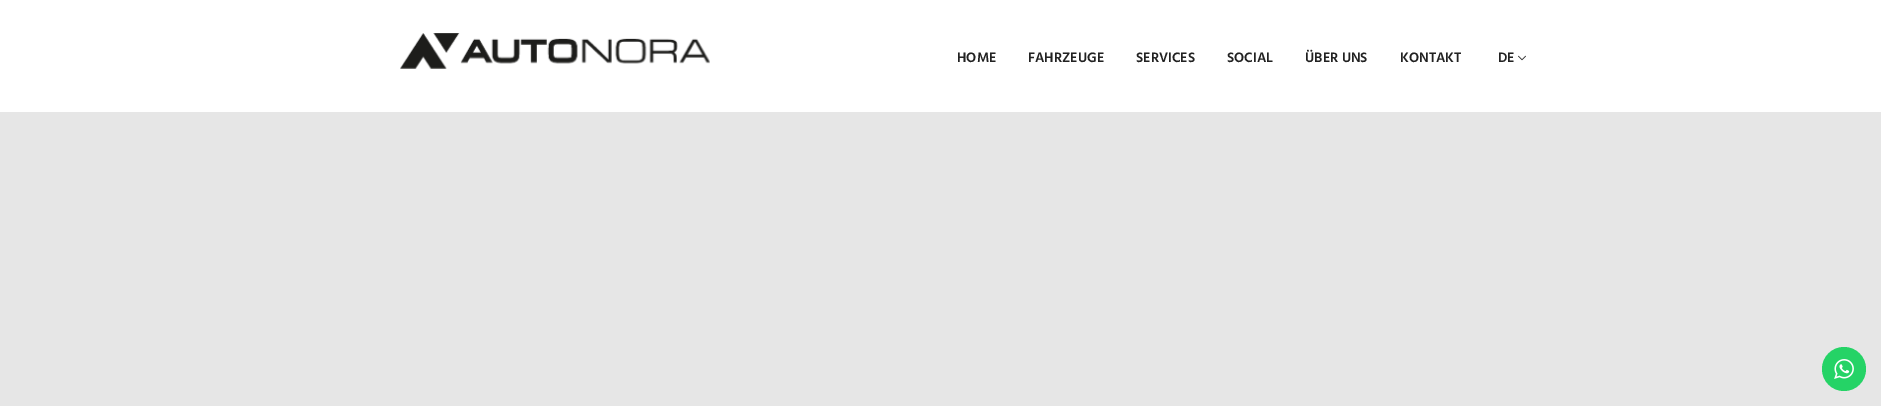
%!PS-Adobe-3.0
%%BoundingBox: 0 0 1881 406
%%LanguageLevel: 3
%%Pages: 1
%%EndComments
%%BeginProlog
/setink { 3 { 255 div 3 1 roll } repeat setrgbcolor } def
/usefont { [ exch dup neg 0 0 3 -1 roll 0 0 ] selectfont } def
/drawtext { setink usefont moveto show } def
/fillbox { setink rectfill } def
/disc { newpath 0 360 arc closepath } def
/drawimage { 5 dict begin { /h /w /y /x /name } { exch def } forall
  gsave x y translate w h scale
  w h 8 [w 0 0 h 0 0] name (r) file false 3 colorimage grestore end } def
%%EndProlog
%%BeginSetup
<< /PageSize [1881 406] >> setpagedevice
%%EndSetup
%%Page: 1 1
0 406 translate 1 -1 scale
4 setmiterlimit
0 0 1881 406 230 230 230 fillbox
0 0 1881 112 255 255 255 fillbox
(assets/img1.rgb) 400 33 310 36 drawimage
(HOME) 957 62 /Hind-SemiBold 14 34 34 34 drawtext
(FAHRZEUGE) 1028 62 /Hind-SemiBold 14 34 34 34 drawtext
(SERVICES) 1136 62 /Hind-SemiBold 14 34 34 34 drawtext
(SOCIAL) 1227 62 /Hind-SemiBold 14 34 34 34 drawtext
(ÜBER UNS) 1305 62 /Hind-SemiBold 14 34 34 34 drawtext
(KONTAKT) 1400 62 /Hind-SemiBold 14 34 34 34 drawtext
(assets/img2.rgb) 1518 55 8 6 drawimage
(DE) 1498 62 /Hind-SemiBold 14 34 34 34 drawtext
37 211 102 setink
1844 369 22 disc fill
(assets/img3.rgb) 1834 359 20 20 drawimage
showpage
%%EOF
